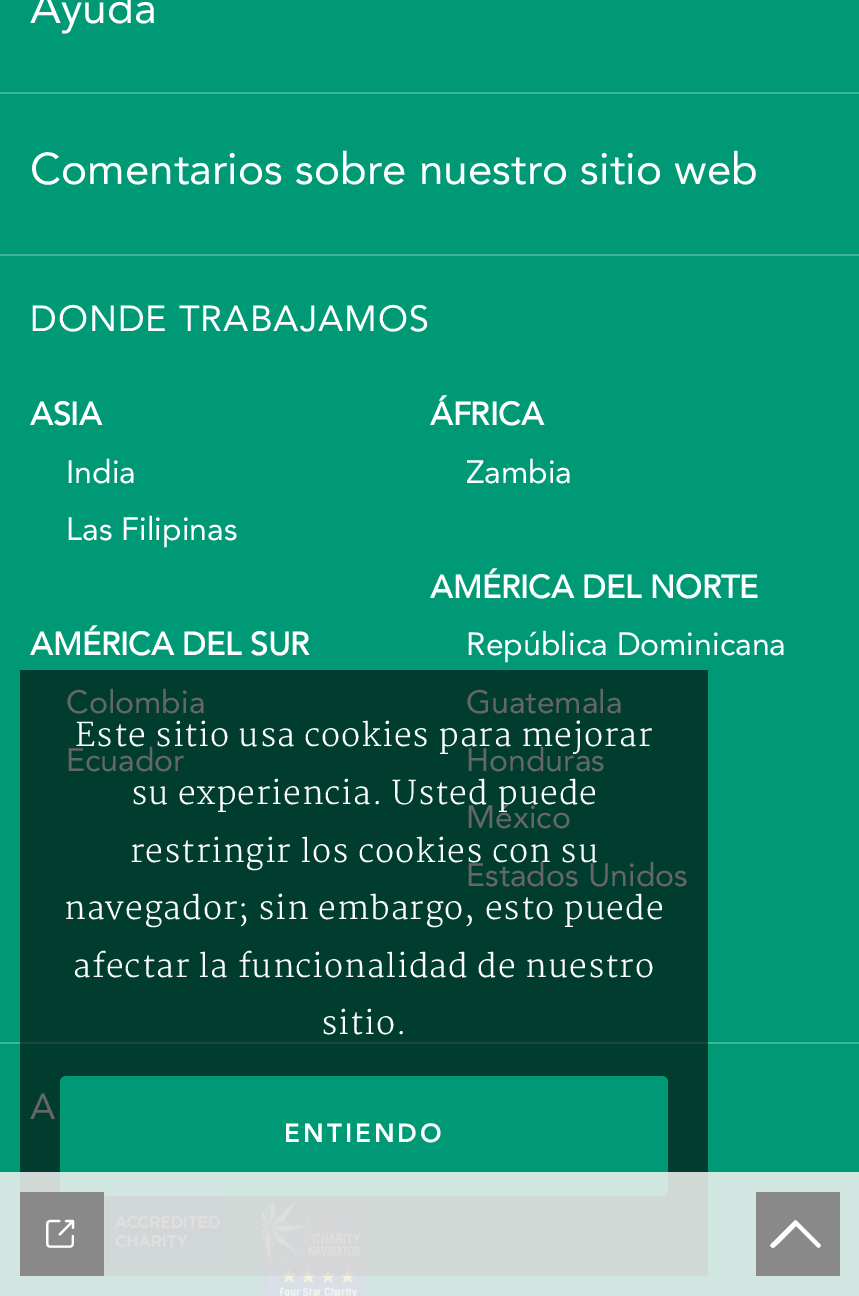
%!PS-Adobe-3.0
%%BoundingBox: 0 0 859 1296
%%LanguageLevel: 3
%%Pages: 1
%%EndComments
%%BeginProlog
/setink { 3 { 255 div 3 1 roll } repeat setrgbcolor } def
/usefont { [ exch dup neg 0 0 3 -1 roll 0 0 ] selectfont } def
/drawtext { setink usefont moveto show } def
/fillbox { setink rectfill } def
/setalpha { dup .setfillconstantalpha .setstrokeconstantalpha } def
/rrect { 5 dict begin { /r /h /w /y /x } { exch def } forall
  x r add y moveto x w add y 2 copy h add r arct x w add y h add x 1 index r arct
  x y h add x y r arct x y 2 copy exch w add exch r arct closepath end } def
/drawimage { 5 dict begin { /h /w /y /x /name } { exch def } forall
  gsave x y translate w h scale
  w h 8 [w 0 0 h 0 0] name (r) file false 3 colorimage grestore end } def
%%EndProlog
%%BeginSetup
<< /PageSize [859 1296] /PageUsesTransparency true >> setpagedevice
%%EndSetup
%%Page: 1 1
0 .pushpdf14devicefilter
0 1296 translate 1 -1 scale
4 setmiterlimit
0 0 859 1296 0 153 118 fillbox
0 254 859 2 64 179 152 fillbox
(Ayuda) 30 23 /Avenir-Regular 44 255 255 255 drawtext
0 92 859 2 64 179 152 fillbox
(Comentarios sobre nuestro sitio web) 30 184 /Avenir-Regular 44 255 255 255 drawtext
0 1042 859 2 64 179 152 fillbox
/Avenir-Regular 36 usefont
255 255 255 setink
30 331 moveto 1 0 (DONDE TRABAJAMOS) ashow
(ASIA) 30 425 /Avenir-Bold 32 255 255 255 drawtext
(India) 66 483 /Avenir-Regular 32 255 255 255 drawtext
(Las Filipinas) 66 540 /Avenir-Regular 32 255 255 255 drawtext
(AMÉRICA DEL SUR) 30 655 /Avenir-Bold 32 255 255 255 drawtext
(Colombia) 66 713 /Avenir-Regular 32 255 255 255 drawtext
(Ecuador) 66 771 /Avenir-Regular 32 255 255 255 drawtext
(ÁFRICA) 430 425 /Avenir-Bold 32 255 255 255 drawtext
(Zambia) 466 483 /Avenir-Regular 32 255 255 255 drawtext
(AMÉRICA DEL NORTE) 430 598 /Avenir-Bold 32 255 255 255 drawtext
(República Dominicana) 466 655 /Avenir-Regular 32 255 255 255 drawtext
(Guatemala) 466 713 /Avenir-Regular 32 255 255 255 drawtext
(Honduras) 466 771 /Avenir-Regular 32 255 255 255 drawtext
(México) 466 828 /Avenir-Regular 32 255 255 255 drawtext
(Estados Unidos) 466 886 /Avenir-Regular 32 255 255 255 drawtext
/Avenir-Regular 36 usefont
30 1119 moveto 1 0 (A) ashow
(assets/img1.rgb) 104 1196 124 70 drawimage
(assets/img2.rgb) 261 1202 105 94 drawimage
0.6 setalpha
20 670 688 606 0 0 0 fillbox
/Martel-Light 32 usefont
1 setalpha
255 255 255 setink
75 746 moveto 1 0 (Este sitio usa cookies para mejorar) ashow
131 804 moveto 1 0 (su experiencia. Usted puede) ashow
130 862 moveto 1 0 (restringir los cookies con su) ashow
64 919 moveto 1 0 (navegador; sin embargo, esto puede) ashow
73 977 moveto 1 0 (afectar la funcionalidad de nuestro) ashow
321 1034 moveto 1 0 (sitio.) ashow
0 153 118 setink
60 1076 608 120 6 rrect fill
/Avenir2-Regular 26 usefont
255 255 255 setink
284 1142 moveto 3 0 (ENTIENDO) ashow
0.85 setalpha
0 1172 859 124 246 244 243 fillbox
1 setalpha
20 1192 84 84 137 137 137 fillbox
(assets/img3.rgb) 46 1219 29 29 drawimage
756 1192 84 84 137 137 137 fillbox
255 255 255 setink
773 1248 moveto 775 1248 793 1229 796 1226 curveto 817 1247 lineto 818 1248 819 1248 820 1247 curveto 821 1246 821 1244 820 1244 curveto 797 1221 lineto 796 1220 795 1220 794 1221 curveto 771 1244 lineto 770 1245 770 1246 771 1247 curveto closepath fill
.poppdf14devicefilter showpage
%%EOF
